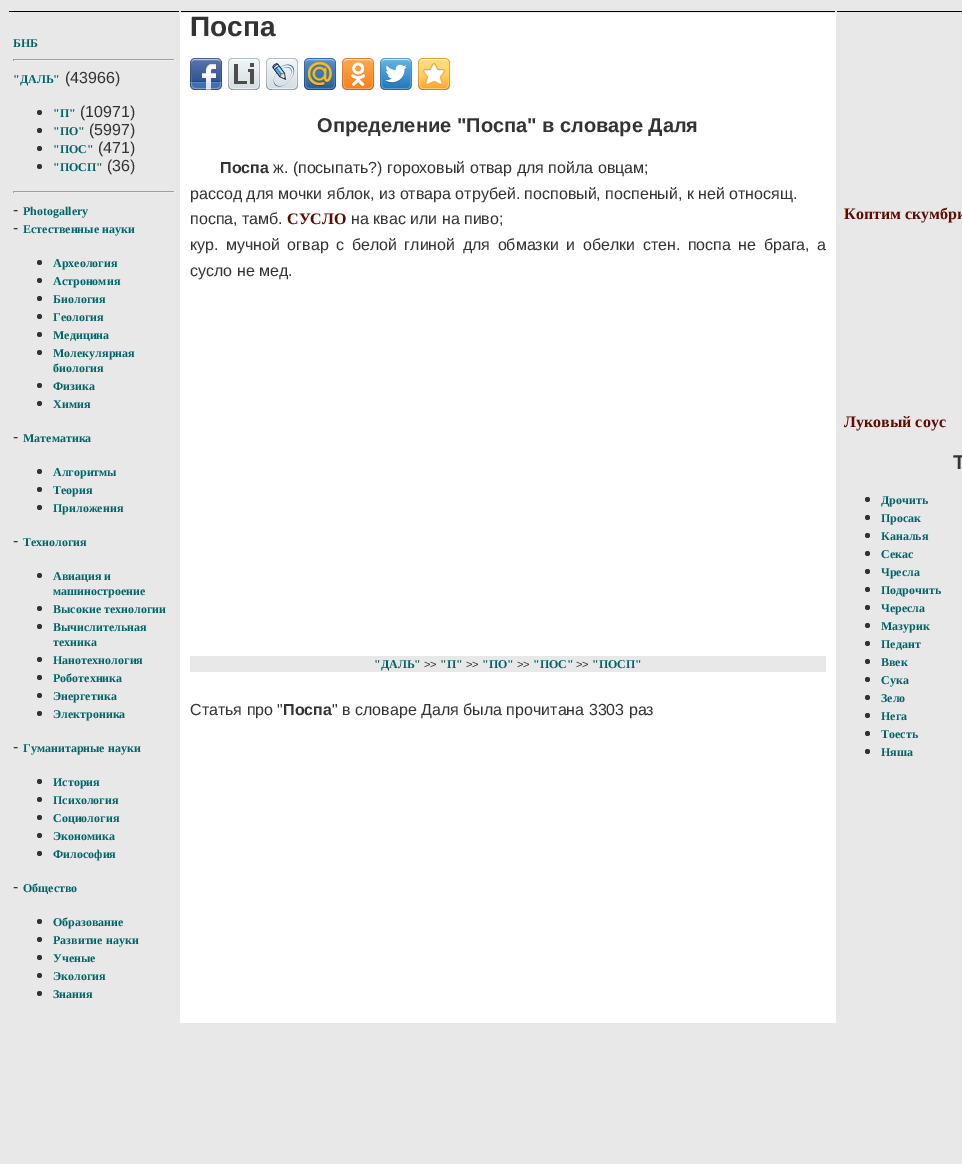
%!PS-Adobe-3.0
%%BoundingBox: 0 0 962 1164
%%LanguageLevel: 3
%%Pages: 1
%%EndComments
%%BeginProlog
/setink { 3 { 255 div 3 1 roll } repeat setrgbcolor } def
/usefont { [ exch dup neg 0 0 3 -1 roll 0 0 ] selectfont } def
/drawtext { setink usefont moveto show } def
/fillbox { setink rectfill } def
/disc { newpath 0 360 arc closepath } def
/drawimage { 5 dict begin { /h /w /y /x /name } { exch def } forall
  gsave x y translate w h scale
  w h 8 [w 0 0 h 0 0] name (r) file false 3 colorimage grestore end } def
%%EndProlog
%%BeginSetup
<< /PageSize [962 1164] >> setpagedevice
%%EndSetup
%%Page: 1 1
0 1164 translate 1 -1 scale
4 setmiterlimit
0 0 962 1164 232 232 232 fillbox
9 11 170 1 0 0 0 fillbox
181 11 654 1 0 0 0 fillbox
837 11 125 1 0 0 0 fillbox
(БНБ) 13 47 /LiberationSerif-Bold 12 0 100 104 drawtext
13 59 162 1 159 159 159 fillbox
174 59 1 2 238 238 238 fillbox
13 60 162 1 238 238 238 fillbox
13 59 1 2 159 159 159 fillbox
("ДАЛЬ") 13 83 /LiberationSerif-Bold 12 0 100 104 drawtext
(\(43966\)) 65 83 /LiberationSans-Regular 16 51 51 51 drawtext
39.5 112.5 2.5 disc fill
("П") 53 117 /LiberationSerif-Bold 12 0 100 104 drawtext
(\(10971\)) 80 117 /LiberationSans-Regular 16 51 51 51 drawtext
39.5 130.5 2.5 disc fill
("ПО") 53 135 /LiberationSerif-Bold 12 0 100 104 drawtext
(\(5997\)) 89 135 /LiberationSans-Regular 16 51 51 51 drawtext
39.5 148.5 2.5 disc fill
("ПОС") 53 153 /LiberationSerif-Bold 12 0 100 104 drawtext
(\(471\)) 98 153 /LiberationSans-Regular 16 51 51 51 drawtext
39.5 166.5 2.5 disc fill
("ПОСП") 53 171 /LiberationSerif-Bold 12 0 100 104 drawtext
(\(36\)) 107 171 /LiberationSans-Regular 16 51 51 51 drawtext
13 191 162 1 159 159 159 fillbox
174 191 1 2 238 238 238 fillbox
13 192 162 1 238 238 238 fillbox
13 191 1 2 159 159 159 fillbox
(-) 13 215 /LiberationSans-Regular 16 51 51 51 drawtext
(Photogallery) 23 215 /LiberationSerif-Bold 12 0 100 104 drawtext
(-) 13 233 /LiberationSans-Regular 16 51 51 51 drawtext
(Естественные науки) 23 233 /LiberationSerif-Bold 12 0 100 104 drawtext
51 51 51 setink
39.5 262.5 2.5 disc fill
(Археология) 53 267 /LiberationSerif-Bold 12 0 100 104 drawtext
51 51 51 setink
39.5 280.5 2.5 disc fill
(Астрономия) 53 285 /LiberationSerif-Bold 12 0 100 104 drawtext
51 51 51 setink
39.5 298.5 2.5 disc fill
(Биология) 53 303 /LiberationSerif-Bold 12 0 100 104 drawtext
51 51 51 setink
39.5 316.5 2.5 disc fill
(Геология) 53 321 /LiberationSerif-Bold 12 0 100 104 drawtext
51 51 51 setink
39.5 334.5 2.5 disc fill
(Медицина) 53 339 /LiberationSerif-Bold 12 0 100 104 drawtext
51 51 51 setink
39.5 352.5 2.5 disc fill
(Молекулярная) 53 357 /LiberationSerif-Bold 12 0 100 104 drawtext
(биология) 53 372 /LiberationSerif-Bold 12 0 100 104 drawtext
51 51 51 setink
39.5 385.5 2.5 disc fill
(Физика) 53 390 /LiberationSerif-Bold 12 0 100 104 drawtext
51 51 51 setink
39.5 403.5 2.5 disc fill
(Химия) 53 408 /LiberationSerif-Bold 12 0 100 104 drawtext
(-) 13 442 /LiberationSans-Regular 16 51 51 51 drawtext
(Математика) 23 442 /LiberationSerif-Bold 12 0 100 104 drawtext
51 51 51 setink
39.5 471.5 2.5 disc fill
(Алгоритмы) 53 476 /LiberationSerif-Bold 12 0 100 104 drawtext
51 51 51 setink
39.5 489.5 2.5 disc fill
(Теория) 53 494 /LiberationSerif-Bold 12 0 100 104 drawtext
51 51 51 setink
39.5 507.5 2.5 disc fill
(Приложения) 53 512 /LiberationSerif-Bold 12 0 100 104 drawtext
(-) 13 546 /LiberationSans-Regular 16 51 51 51 drawtext
(Технология) 23 546 /LiberationSerif-Bold 12 0 100 104 drawtext
51 51 51 setink
39.5 575.5 2.5 disc fill
(Авиация и) 53 580 /LiberationSerif-Bold 12 0 100 104 drawtext
(машиностроение) 53 595 /LiberationSerif-Bold 12 0 100 104 drawtext
51 51 51 setink
39.5 608.5 2.5 disc fill
(Высокие технологии) 53 613 /LiberationSerif-Bold 12 0 100 104 drawtext
51 51 51 setink
39.5 626.5 2.5 disc fill
(Вычислительная) 53 631 /LiberationSerif-Bold 12 0 100 104 drawtext
(техника) 53 646 /LiberationSerif-Bold 12 0 100 104 drawtext
51 51 51 setink
39.5 659.5 2.5 disc fill
(Нанотехнология) 53 664 /LiberationSerif-Bold 12 0 100 104 drawtext
51 51 51 setink
39.5 677.5 2.5 disc fill
(Роботехника) 53 682 /LiberationSerif-Bold 12 0 100 104 drawtext
51 51 51 setink
39.5 695.5 2.5 disc fill
(Энергетика) 53 700 /LiberationSerif-Bold 12 0 100 104 drawtext
51 51 51 setink
39.5 713.5 2.5 disc fill
(Электроника) 53 718 /LiberationSerif-Bold 12 0 100 104 drawtext
(-) 13 752 /LiberationSans-Regular 16 51 51 51 drawtext
(Гуманитарные науки) 23 752 /LiberationSerif-Bold 12 0 100 104 drawtext
51 51 51 setink
39.5 781.5 2.5 disc fill
(История) 53 786 /LiberationSerif-Bold 12 0 100 104 drawtext
51 51 51 setink
39.5 799.5 2.5 disc fill
(Психология) 53 804 /LiberationSerif-Bold 12 0 100 104 drawtext
51 51 51 setink
39.5 817.5 2.5 disc fill
(Социология) 53 822 /LiberationSerif-Bold 12 0 100 104 drawtext
51 51 51 setink
39.5 835.5 2.5 disc fill
(Экономика) 53 840 /LiberationSerif-Bold 12 0 100 104 drawtext
51 51 51 setink
39.5 853.5 2.5 disc fill
(Философия) 53 858 /LiberationSerif-Bold 12 0 100 104 drawtext
(-) 13 892 /LiberationSans-Regular 16 51 51 51 drawtext
(Общество) 23 892 /LiberationSerif-Bold 12 0 100 104 drawtext
51 51 51 setink
39.5 921.5 2.5 disc fill
(Образование) 53 926 /LiberationSerif-Bold 12 0 100 104 drawtext
51 51 51 setink
39.5 939.5 2.5 disc fill
(Развитие науки) 53 944 /LiberationSerif-Bold 12 0 100 104 drawtext
51 51 51 setink
39.5 957.5 2.5 disc fill
(Ученые) 53 962 /LiberationSerif-Bold 12 0 100 104 drawtext
51 51 51 setink
39.5 975.5 2.5 disc fill
(Экология) 53 980 /LiberationSerif-Bold 12 0 100 104 drawtext
51 51 51 setink
39.5 993.5 2.5 disc fill
(Знания) 53 998 /LiberationSerif-Bold 12 0 100 104 drawtext
180 13 656 1010 255 255 255 fillbox
(Поспа) 190 36 /LiberationSans-Bold 28 51 51 51 drawtext
(assets/img1.rgb) 190 58 32 32 drawimage
(assets/img2.rgb) 228 58 32 32 drawimage
(assets/img3.rgb) 266 58 32 32 drawimage
(assets/img4.rgb) 304 58 32 32 drawimage
(assets/img5.rgb) 342 58 32 32 drawimage
(assets/img6.rgb) 380 58 32 32 drawimage
(assets/img7.rgb) 418 58 32 32 drawimage
(Определение "Поспа" в словаре Даля) 317 132 /LiberationSans-Bold 20 51 51 51 drawtext
(Поспа) 220 173 /LiberationSans-Bold 16 51 51 51 drawtext
(ж. \(посыпать?\) гороховый отвар для пойла овцам;) 273 173 /LiberationSans-Regular 16 51 51 51 drawtext
(рассод для мочки яблок, из отвара отрубей. посповый, поспеный, к ней относящ.) 190 199 /LiberationSans-Regular 16 51 51 51 drawtext
(поспа, тамб.) 190 224 /LiberationSans-Regular 16 51 51 51 drawtext
(СУСЛО) 287 224 /LiberationSerif-Bold 16 90 13 0 drawtext
(на квас или на пиво;) 351 224 /LiberationSans-Regular 16 51 51 51 drawtext
190 250 moveto 3.1 0 32 (кур. мучной огвар с белой глиной для обмазки и обелки стен. поспа не брага, а) widthshow
(сусло не мед.) 190 276 /LiberationSans-Regular 16 51 51 51 drawtext
190 656 636 16 232 232 232 fillbox
("ДАЛЬ") 374 668 /LiberationSerif-Bold 12 0 100 104 drawtext
(>>) 424 668 /LiberationSans-Regular 11 51 51 51 drawtext
("П") 440 668 /LiberationSerif-Bold 12 0 100 104 drawtext
(>>) 466 668 /LiberationSans-Regular 11 51 51 51 drawtext
("ПО") 482 668 /LiberationSerif-Bold 12 0 100 104 drawtext
(>>) 517 668 /LiberationSans-Regular 11 51 51 51 drawtext
("ПОС") 533 668 /LiberationSerif-Bold 12 0 100 104 drawtext
(>>) 576 668 /LiberationSans-Regular 11 51 51 51 drawtext
("ПОСП") 592 668 /LiberationSerif-Bold 12 0 100 104 drawtext
(Статья про ") 190 715 /LiberationSans-Regular 16 51 51 51 drawtext
(Поспа) 283 715 /LiberationSans-Bold 16 51 51 51 drawtext
(" в словаре Даля была прочитана 3303 раз) 332 715 /LiberationSans-Regular 16 51 51 51 drawtext
(Коптим скумбри) 844 219 /LiberationSerif-Bold 16 90 13 0 drawtext
(Луковый соус) 844 427 /LiberationSerif-Bold 16 90 13 0 drawtext
(T) 953 469 /LiberationSans-Bold 20 51 51 51 drawtext
867.5 499.5 2.5 disc fill
(Дрочить) 881 504 /LiberationSerif-Bold 12 0 100 104 drawtext
51 51 51 setink
867.5 517.5 2.5 disc fill
(Просак) 881 522 /LiberationSerif-Bold 12 0 100 104 drawtext
51 51 51 setink
867.5 535.5 2.5 disc fill
(Каналья) 881 540 /LiberationSerif-Bold 12 0 100 104 drawtext
51 51 51 setink
867.5 553.5 2.5 disc fill
(Секас) 881 558 /LiberationSerif-Bold 12 0 100 104 drawtext
51 51 51 setink
867.5 571.5 2.5 disc fill
(Чресла) 881 576 /LiberationSerif-Bold 12 0 100 104 drawtext
51 51 51 setink
867.5 589.5 2.5 disc fill
(Подрочить) 881 594 /LiberationSerif-Bold 12 0 100 104 drawtext
51 51 51 setink
867.5 607.5 2.5 disc fill
(Чересла) 881 612 /LiberationSerif-Bold 12 0 100 104 drawtext
51 51 51 setink
867.5 625.5 2.5 disc fill
(Мазурик) 881 630 /LiberationSerif-Bold 12 0 100 104 drawtext
51 51 51 setink
867.5 643.5 2.5 disc fill
(Педант) 881 648 /LiberationSerif-Bold 12 0 100 104 drawtext
51 51 51 setink
867.5 661.5 2.5 disc fill
(Ввек) 881 666 /LiberationSerif-Bold 12 0 100 104 drawtext
51 51 51 setink
867.5 679.5 2.5 disc fill
(Сука) 881 684 /LiberationSerif-Bold 12 0 100 104 drawtext
51 51 51 setink
867.5 697.5 2.5 disc fill
(Зело) 881 702 /LiberationSerif-Bold 12 0 100 104 drawtext
51 51 51 setink
867.5 715.5 2.5 disc fill
(Нега) 881 720 /LiberationSerif-Bold 12 0 100 104 drawtext
51 51 51 setink
867.5 733.5 2.5 disc fill
(Тоесть) 881 738 /LiberationSerif-Bold 12 0 100 104 drawtext
51 51 51 setink
867.5 751.5 2.5 disc fill
(Няша) 881 756 /LiberationSerif-Bold 12 0 100 104 drawtext
showpage
%%EOF
